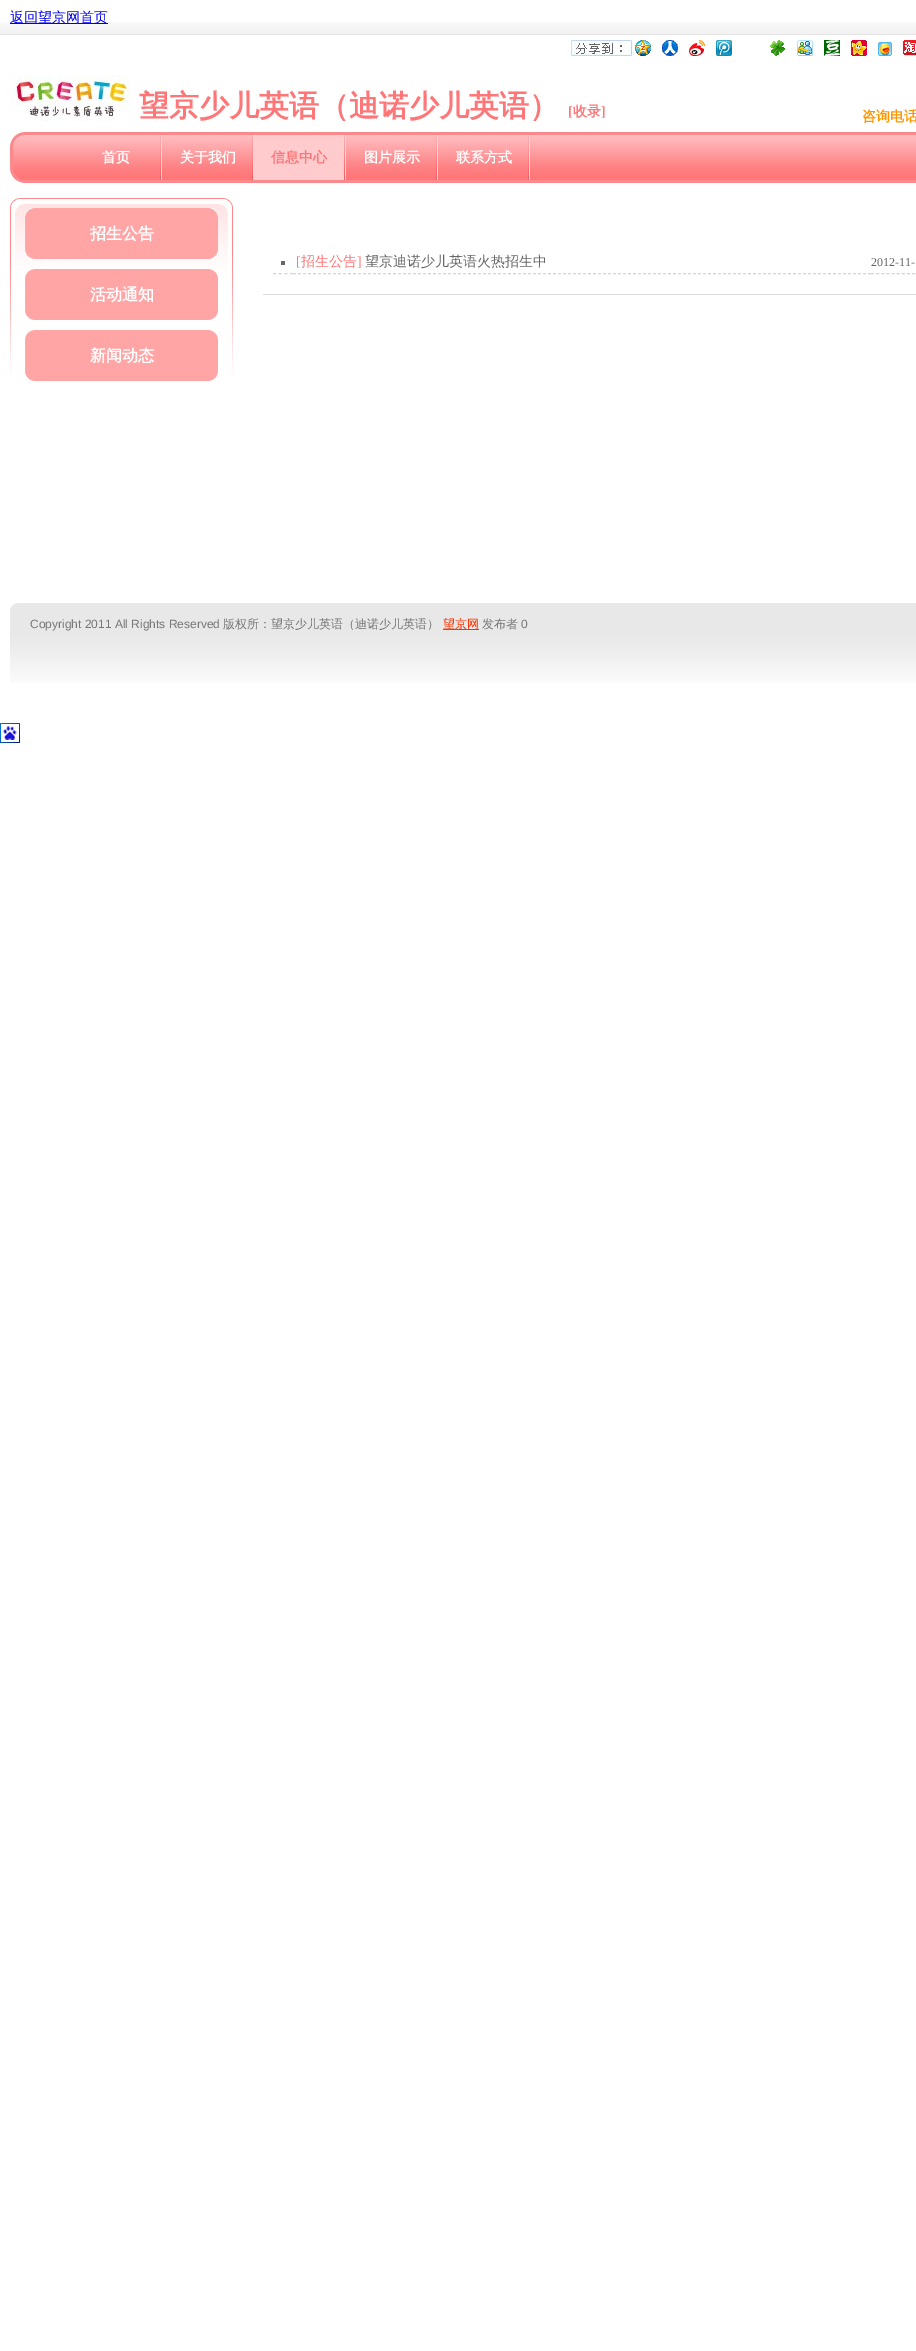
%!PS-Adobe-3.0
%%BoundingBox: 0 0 916 2351
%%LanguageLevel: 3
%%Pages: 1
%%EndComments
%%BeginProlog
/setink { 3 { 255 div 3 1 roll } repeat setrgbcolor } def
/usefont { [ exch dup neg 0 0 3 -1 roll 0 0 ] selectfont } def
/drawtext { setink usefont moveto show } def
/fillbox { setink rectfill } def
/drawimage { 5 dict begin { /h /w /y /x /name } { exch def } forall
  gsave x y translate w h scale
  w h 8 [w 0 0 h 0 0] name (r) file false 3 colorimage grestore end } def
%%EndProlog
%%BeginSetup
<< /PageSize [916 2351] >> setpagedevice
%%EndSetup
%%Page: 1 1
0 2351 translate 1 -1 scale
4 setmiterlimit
0 0 916 2351 255 255 255 fillbox
(assets/img1.rgb) 0 22 916 13 drawimage
10 23 98 1 0 0 238 fillbox
(返回望京网首页) 10 22 /WenQuanYiZenHei-Medium 14 0 0 238 drawtext
(assets/img2.rgb) 571 40 61 16 drawimage
(assets/img3.rgb) 635 40 16 16 drawimage
(assets/img4.rgb) 662 40 16 16 drawimage
(assets/img5.rgb) 689 40 16 16 drawimage
(assets/img6.rgb) 716 40 16 16 drawimage
(assets/img7.rgb) 770 40 15 16 drawimage
(assets/img8.rgb) 797 40 16 16 drawimage
(assets/img9.rgb) 824 40 16 16 drawimage
(assets/img10.rgb) 851 40 16 16 drawimage
(assets/img11.rgb) 878 42 14 14 drawimage
(assets/img12.rgb) 903 40 13 16 drawimage
(assets/img13.rgb) 10 75 120 46 drawimage
(望京少儿英语（迪诺少儿英语）) 139 116 /WenQuanYiZenHei-Bold 30 254 118 120 drawtext
([) 568 116 /LiberationSerif-Bold 14 254 118 120 drawtext
(收录) 573 116 /WenQuanYiZenHei-Bold 14 254 118 120 drawtext
(]) 601 116 /LiberationSerif-Bold 14 254 118 120 drawtext
(咨询电话) 862 121 /WenQuanYiZenHei-Bold 14 255 150 0 drawtext
(assets/img14.rgb) 10 132 50 51 drawimage
(assets/img15.rgb) 60 132 856 51 drawimage
(assets/img16.rgb) 160 135 2 45 drawimage
(首页) 102 162 /WenQuanYiZenHei-Bold 14 255 255 255 drawtext
(assets/img16.rgb) 252 135 2 45 drawimage
(关于我们) 180 162 /WenQuanYiZenHei-Bold 14 255 255 255 drawtext
(assets/img16.rgb) 344 135 2 45 drawimage
254 135 90 45 255 203 205 fillbox
(信息中心) 271 162 /WenQuanYiZenHei-Bold 14 254 118 120 drawtext
(assets/img16.rgb) 436 135 2 45 drawimage
(图片展示) 364 162 /WenQuanYiZenHei-Bold 14 255 255 255 drawtext
(assets/img16.rgb) 528 135 2 45 drawimage
(联系方式) 456 162 /WenQuanYiZenHei-Bold 14 255 255 255 drawtext
(assets/img17.rgb) 10 198 223 177 drawimage
(assets/img18.rgb) 25 208 193 51 drawimage
(招生公告) 90 239 /WenQuanYiZenHei-Bold 16 255 255 255 drawtext
(assets/img19.rgb) 25 269 193 51 drawimage
(活动通知) 90 300 /WenQuanYiZenHei-Bold 16 255 255 255 drawtext
(assets/img20.rgb) 25 330 193 51 drawimage
(新闻动态) 90 361 /WenQuanYiZenHei-Bold 16 255 255 255 drawtext
281 261 4 4 102 102 102 fillbox
213 213 213 setink
[3 2.67] 0 setdash
273 273.5 moveto 293 273.5 lineto stroke
[3 2] 0 setdash
293 273.5 moveto 871 273.5 lineto stroke
([) 296 266 /LiberationSerif-Regular 14 254 118 120 drawtext
(招生公告) 301 266 /WenQuanYiZenHei-Medium 14 254 118 120 drawtext
(]) 357 266 /LiberationSerif-Regular 14 254 118 120 drawtext
(望京迪诺少儿英语火热招生中) 365 266 /WenQuanYiZenHei-Medium 14 102 102 102 drawtext
213 213 213 setink
[3 2.14] 0 setdash
871 273.5 moveto 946 273.5 lineto stroke
(2012-11-) 871 266 /LiberationSerif-Regular 12 102 102 102 drawtext
263 294 653 1 220 220 220 fillbox
(assets/img21.rgb) 10 603 9 80 drawimage
(assets/img22.rgb) 19 603 897 80 drawimage
(Copyright 2011 All Rights Reserved) 30 628 /LiberationSans-Regular 12 118 118 118 drawtext
(版权所：望京少儿英语（迪诺少儿英语）) 223 628 /WenQuanYiZenHei-Medium 12 118 118 118 drawtext
443 629 36 1 255 51 0 fillbox
(望京网) 443 628 /WenQuanYiZenHei-Medium 12 255 51 0 drawtext
(发布者) 482 628 /WenQuanYiZenHei-Medium 12 118 118 118 drawtext
(0) 521 628 /LiberationSans-Regular 12 118 118 118 drawtext
(assets/img23.rgb) 0 723 20 20 drawimage
showpage
%%EOF
